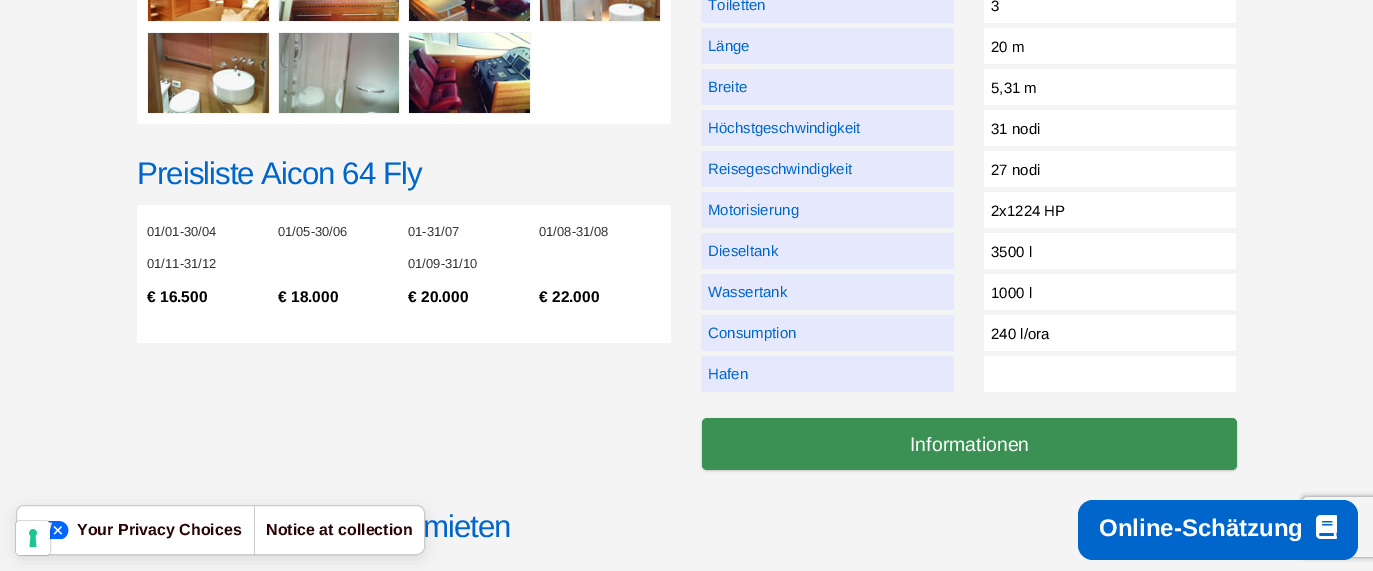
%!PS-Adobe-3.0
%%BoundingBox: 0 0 1373 571
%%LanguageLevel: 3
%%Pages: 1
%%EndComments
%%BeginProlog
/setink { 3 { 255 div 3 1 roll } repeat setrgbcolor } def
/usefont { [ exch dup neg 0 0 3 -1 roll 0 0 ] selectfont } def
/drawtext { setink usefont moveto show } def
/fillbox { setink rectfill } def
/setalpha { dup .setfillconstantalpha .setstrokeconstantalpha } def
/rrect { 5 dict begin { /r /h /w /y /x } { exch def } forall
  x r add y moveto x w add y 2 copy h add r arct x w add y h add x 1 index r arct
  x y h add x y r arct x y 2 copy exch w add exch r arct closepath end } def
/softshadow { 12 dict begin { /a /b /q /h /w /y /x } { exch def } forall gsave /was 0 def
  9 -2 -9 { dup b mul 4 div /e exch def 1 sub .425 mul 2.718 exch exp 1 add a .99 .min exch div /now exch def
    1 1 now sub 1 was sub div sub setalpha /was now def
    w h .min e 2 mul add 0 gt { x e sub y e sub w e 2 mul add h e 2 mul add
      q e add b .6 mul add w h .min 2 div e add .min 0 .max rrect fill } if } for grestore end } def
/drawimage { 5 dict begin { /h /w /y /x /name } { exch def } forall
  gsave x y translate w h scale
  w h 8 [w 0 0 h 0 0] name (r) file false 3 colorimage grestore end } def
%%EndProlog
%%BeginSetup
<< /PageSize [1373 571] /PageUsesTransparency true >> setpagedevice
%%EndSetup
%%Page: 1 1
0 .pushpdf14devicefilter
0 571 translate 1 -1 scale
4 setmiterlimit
0 0 1373 571 244 244 244 fillbox
0 0 0 setink
16 509 409 50 8 8 0.1 softshadow
255 255 255 setink
16 505 409 50 8 rrect fill
0.2 setalpha
0 0 0 setink
16.5 505.5 408 49 7.5 rrect stroke
1 setalpha
(assets/img10.rgb) 46 521 23 18 drawimage
0.15 setalpha
15.5 520.5 35 35 4.5 rrect stroke
1 setalpha
255 255 255 setink
16 521 34 34 4 rrect fill
(assets/img1.rgb) 29 529 8 18 drawimage
137 0 534 124 255 255 255 fillbox
244 244 244 setink
147.5 -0.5 122 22 rectstroke
(assets/img2.rgb) 148 0 121 21 drawimage
278.5 -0.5 121 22 rectstroke
(assets/img3.rgb) 279 0 120 21 drawimage
408.5 -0.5 122 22 rectstroke
(assets/img4.rgb) 409 0 121 21 drawimage
539.5 -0.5 121 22 rectstroke
(assets/img5.rgb) 540 0 120 21 drawimage
147.5 32.5 122 81 rectstroke
(assets/img6.rgb) 148 33 121 80 drawimage
278.5 32.5 121 81 rectstroke
(assets/img7.rgb) 279 33 120 80 drawimage
408.5 32.5 122 81 rectstroke
(assets/img8.rgb) 409 33 121 80 drawimage
/LiberationSans-Regular 31.25 usefont
0 102 204 setink
137 184 moveto -1 0 (Preisliste Aicon 64 Fly) ashow
137 205 534 138 255 255 255 fillbox
(01/01-30/04) 147 236 /LiberationSans-Regular 13 51 51 51 drawtext
(01/11-31/12) 147 268 /LiberationSans-Regular 13 51 51 51 drawtext
(€ 16.500) 147 302 /LiberationSans-Bold 15.5 0 0 0 drawtext
(01/05-30/06) 278 236 /LiberationSans-Regular 13 51 51 51 drawtext
(€ 18.000) 278 302 /LiberationSans-Bold 15.5 0 0 0 drawtext
(01-31/07) 408 236 /LiberationSans-Regular 13 51 51 51 drawtext
(01/09-31/10) 408 268 /LiberationSans-Regular 13 51 51 51 drawtext
(€ 20.000) 408 302 /LiberationSans-Bold 15.5 0 0 0 drawtext
(01/08-31/08) 539 236 /LiberationSans-Regular 13 51 51 51 drawtext
(€ 22.000) 539 302 /LiberationSans-Bold 15.5 0 0 0 drawtext
701 0 253 23 230 233 251 fillbox
(Toiletten) 708 10 /LiberationSans-Regular 15 0 102 204 drawtext
984 0 252 23 255 255 255 fillbox
(3) 991 11 /LiberationSans-Regular 15 0 0 0 drawtext
701 28 253 36 230 233 251 fillbox
(Länge) 708 51 /LiberationSans-Regular 15 0 102 204 drawtext
984 28 252 36 255 255 255 fillbox
(20 m) 991 52 /LiberationSans-Regular 15 0 0 0 drawtext
701 69 253 36 230 233 251 fillbox
(Breite) 708 92 /LiberationSans-Regular 15 0 102 204 drawtext
984 69 252 36 255 255 255 fillbox
(5,31 m) 991 93 /LiberationSans-Regular 15 0 0 0 drawtext
701 110 253 36 230 233 251 fillbox
(Höchstgeschwindigkeit) 708 133 /LiberationSans-Regular 15 0 102 204 drawtext
984 110 252 36 255 255 255 fillbox
(31 nodi) 991 134 /LiberationSans-Regular 15 0 0 0 drawtext
701 151 253 36 230 233 251 fillbox
(Reisegeschwindigkeit) 708 174 /LiberationSans-Regular 15 0 102 204 drawtext
984 151 252 36 255 255 255 fillbox
(27 nodi) 991 175 /LiberationSans-Regular 15 0 0 0 drawtext
701 192 253 36 230 233 251 fillbox
(Motorisierung) 708 215 /LiberationSans-Regular 15 0 102 204 drawtext
984 192 252 36 255 255 255 fillbox
(2x1224 HP) 991 216 /LiberationSans-Regular 15 0 0 0 drawtext
701 233 253 36 230 233 251 fillbox
(Dieseltank) 708 256 /LiberationSans-Regular 15 0 102 204 drawtext
984 233 252 36 255 255 255 fillbox
(3500 l) 991 257 /LiberationSans-Regular 15 0 0 0 drawtext
701 274 253 36 230 233 251 fillbox
(Wassertank) 708 297 /LiberationSans-Regular 15 0 102 204 drawtext
984 274 252 36 255 255 255 fillbox
(1000 l) 991 298 /LiberationSans-Regular 15 0 0 0 drawtext
701 315 253 36 230 233 251 fillbox
(Consumption) 708 338 /LiberationSans-Regular 15 0 102 204 drawtext
984 315 252 36 255 255 255 fillbox
(240 l/ora) 991 339 /LiberationSans-Regular 15 0 0 0 drawtext
701 356 253 36 230 233 251 fillbox
(Hafen) 708 379 /LiberationSans-Regular 15 0 102 204 drawtext
984 356 252 36 255 255 255 fillbox
0 0 0 setink
702 419 535 52 5 1 0.2 softshadow
59 144 83 setink
702 418 535 52 5 rrect fill
(Informationen) 910 451 /LiberationSans-Regular 19.5 255 255 255 drawtext
/LiberationSans-Regular 31.25 usefont
0 102 204 setink
423 537 moveto -1 0 (mieten) ashow
gsave
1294 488 moveto 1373 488 lineto 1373 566 lineto 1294 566 lineto closepath 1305 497 moveto 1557 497 lineto 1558 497 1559 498 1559 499 curveto 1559 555 lineto 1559 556 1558 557 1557 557 curveto 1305 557 lineto 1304 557 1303 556 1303 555 curveto 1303 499 lineto 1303 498 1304 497 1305 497 curveto closepath eoclip newpath
128 128 128 setink
1303 497 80 60 2 2.5 1 softshadow
grestore
1078 500 280 60 15 rrect fill
(Online-Schätzung) 1099 536 /LiberationSans-Bold 24 255 255 255 drawtext
(assets/img9.rgb) 1316 515 21 24 drawimage
254 506 1 48 204 204 204 fillbox
(Your Privacy Choices) 77 535 /LiberationSans-Bold 16 40 4 4 drawtext
(Notice at collection) 266 535 /LiberationSans-Bold 16 40 4 4 drawtext
.poppdf14devicefilter showpage
%%EOF
